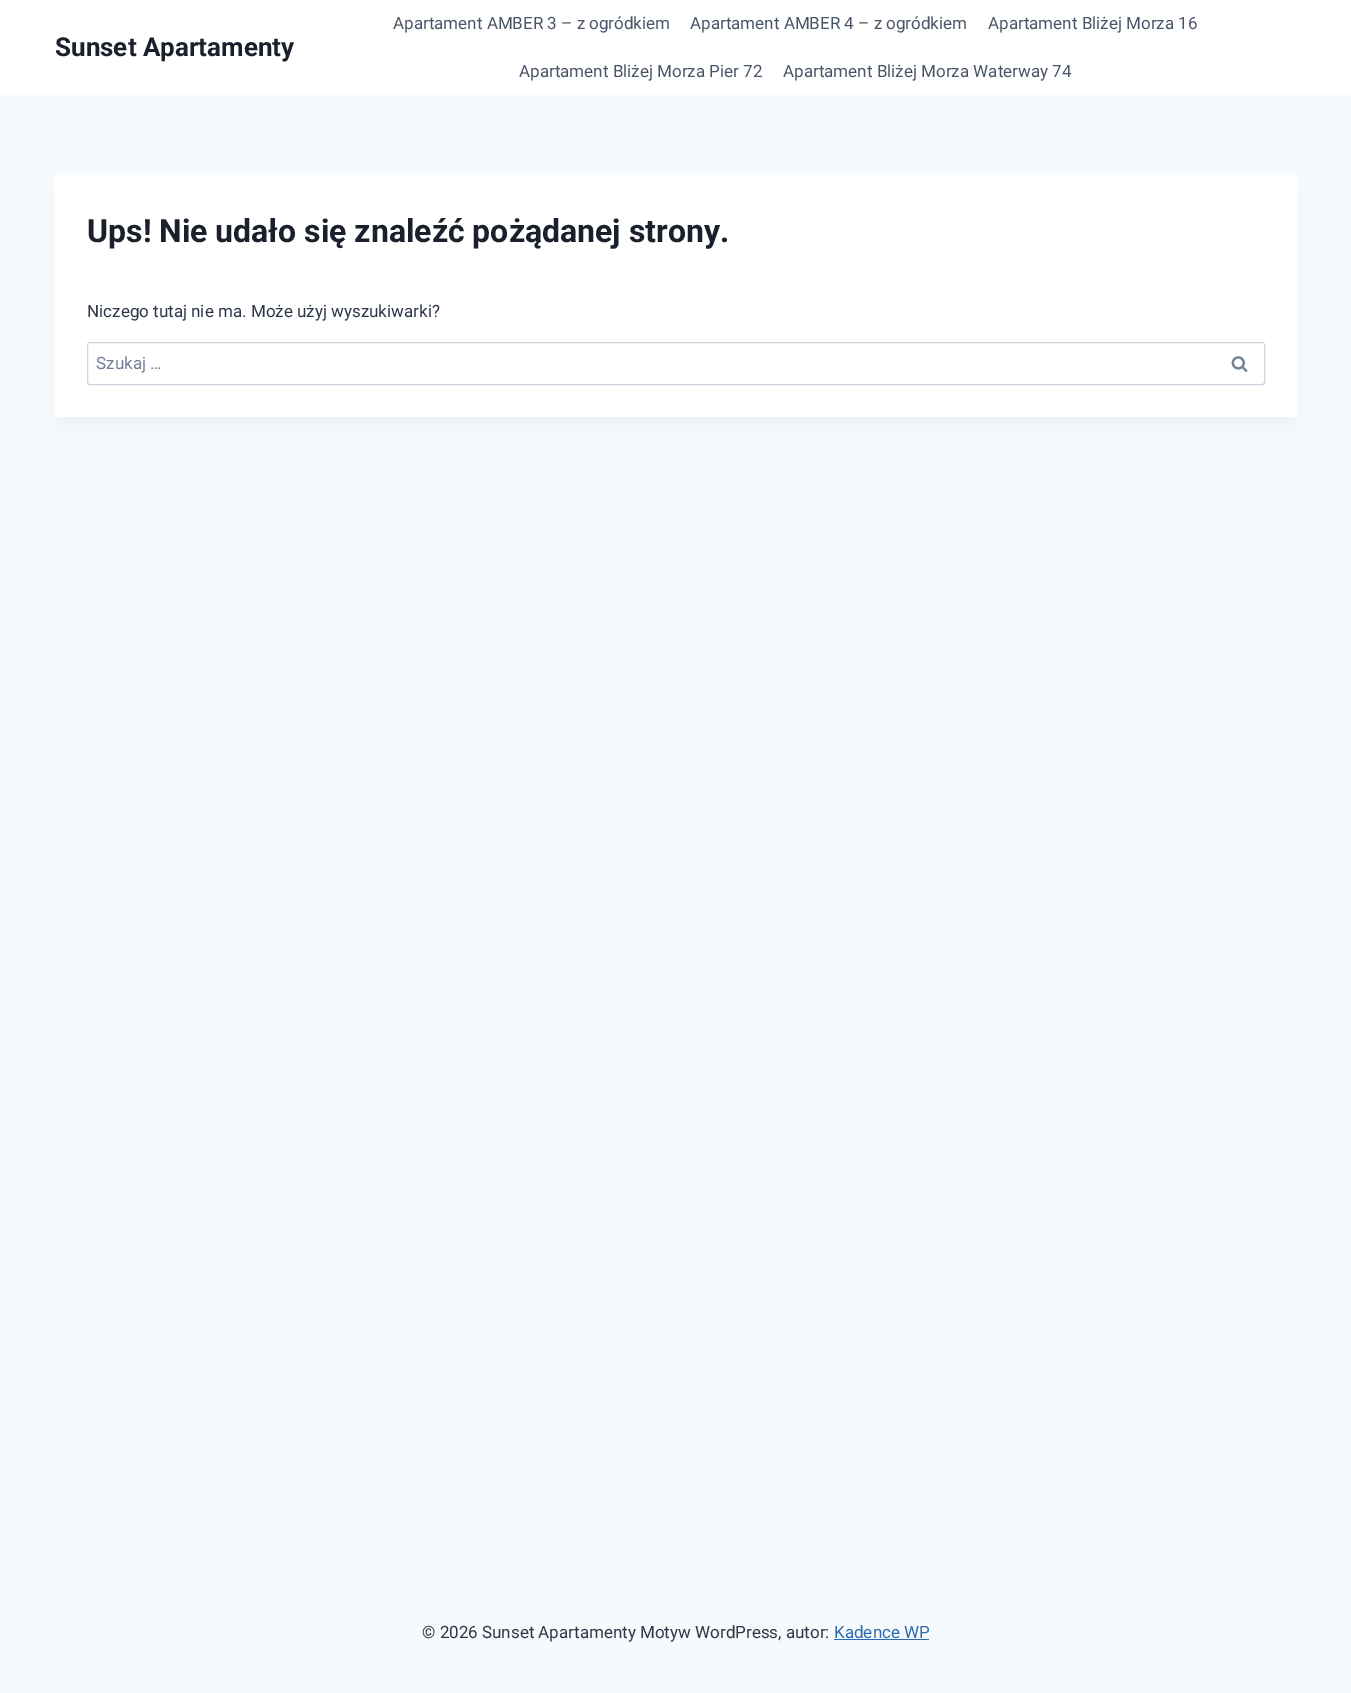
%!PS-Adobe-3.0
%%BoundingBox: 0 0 1351 1693
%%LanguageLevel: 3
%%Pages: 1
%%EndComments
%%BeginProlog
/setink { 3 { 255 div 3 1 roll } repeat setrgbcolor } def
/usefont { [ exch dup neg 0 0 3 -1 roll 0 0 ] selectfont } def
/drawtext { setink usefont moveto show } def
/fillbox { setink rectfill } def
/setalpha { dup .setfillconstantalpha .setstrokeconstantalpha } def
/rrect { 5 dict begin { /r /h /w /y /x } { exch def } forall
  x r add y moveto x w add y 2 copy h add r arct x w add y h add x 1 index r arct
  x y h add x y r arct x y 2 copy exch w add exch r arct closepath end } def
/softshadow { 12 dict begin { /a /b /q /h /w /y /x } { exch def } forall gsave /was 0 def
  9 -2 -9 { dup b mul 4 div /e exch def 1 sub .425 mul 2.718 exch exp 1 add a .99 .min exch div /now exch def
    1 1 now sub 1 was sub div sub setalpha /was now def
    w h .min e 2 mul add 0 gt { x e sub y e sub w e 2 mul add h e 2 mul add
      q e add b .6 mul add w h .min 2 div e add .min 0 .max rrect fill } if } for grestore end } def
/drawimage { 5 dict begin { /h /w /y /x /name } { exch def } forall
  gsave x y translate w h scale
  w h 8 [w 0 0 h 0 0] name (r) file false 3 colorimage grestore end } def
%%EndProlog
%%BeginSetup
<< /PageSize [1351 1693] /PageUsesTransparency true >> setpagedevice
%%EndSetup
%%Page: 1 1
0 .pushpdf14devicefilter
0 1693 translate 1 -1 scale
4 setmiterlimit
0 0 1351 1693 247 250 252 fillbox
0 0 1351 95 255 255 255 fillbox
(Sunset Apartamenty) 55 56 /Roboto-Bold 26 26 32 44 drawtext
(Apartament AMBER 3 – z ogródkiem) 393 29 /Roboto-Regular 17 74 85 104 drawtext
(Apartament AMBER 4 – z ogródkiem) 690 29 /Roboto-Regular 17 74 85 104 drawtext
(Apartament Bliżej Morza 16) 988 29 /Roboto-Regular 17 74 85 104 drawtext
(Apartament Bliżej Morza Pier 72) 519 77 /Roboto-Regular 17 74 85 104 drawtext
(Apartament Bliżej Morza Waterway 74) 783 77 /Roboto-Regular 17 74 85 104 drawtext
0 0 0 setink
65 200 1222 222 0 12.5 0.05 softshadow
255 255 255 setink
55 175 1242 242 4 rrect fill
(Ups! Nie udało się znaleźć pożądanej strony.) 87 242 /Roboto-Bold 32 26 32 44 drawtext
(Niczego tutaj nie ma. Może użyj wyszukiwarki?) 87 317 /Roboto-Regular 17 45 55 72 drawtext
203 213 224 setink
87.5 342.5 1177 42 2.5 rrect stroke
(Szukaj …) 96 369 /Roboto-Regular 17 113 128 150 drawtext
(assets/img1.rgb) 1231 356 17 16 drawimage
(© 2026 Sunset Apartamenty Motyw WordPress, autor:) 422 1638 /Roboto-Regular 17 45 55 72 drawtext
(Kadence WP) 834 1638 /Roboto-Regular 17 43 108 176 drawtext
834 1639 95 1 43 108 176 fillbox
.poppdf14devicefilter showpage
%%EOF
